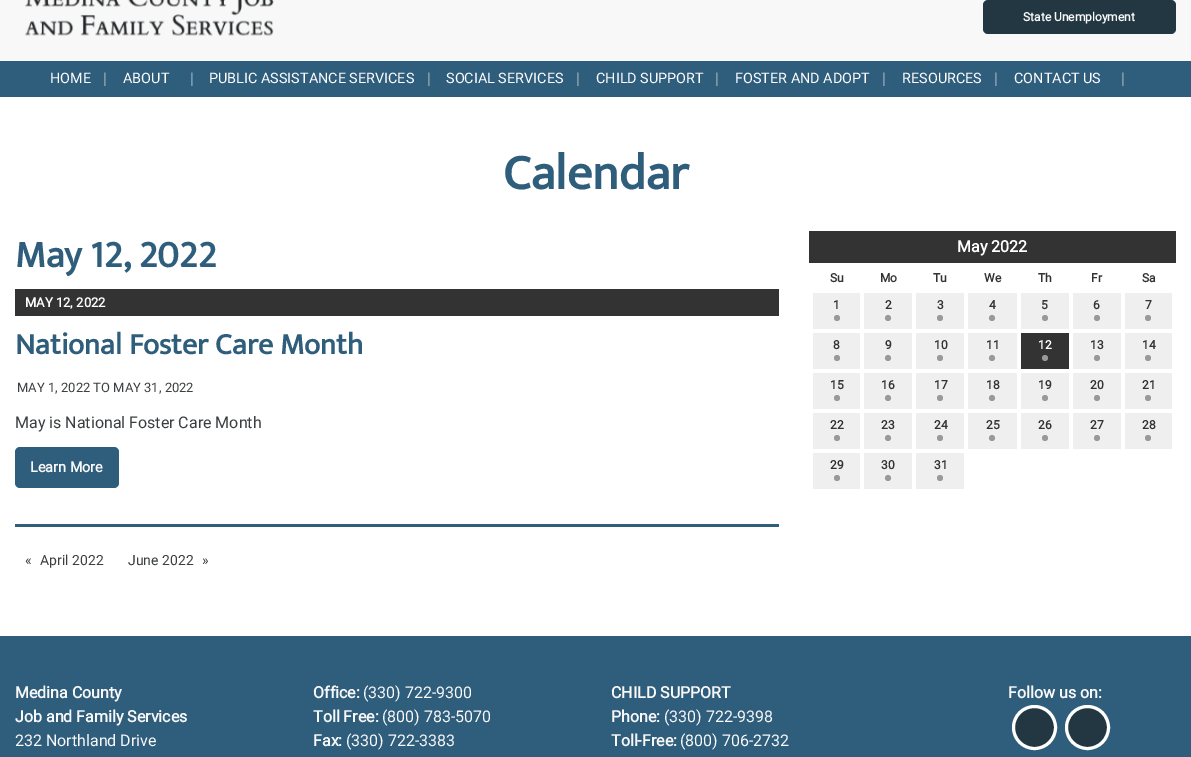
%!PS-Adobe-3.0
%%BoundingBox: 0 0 1191 757
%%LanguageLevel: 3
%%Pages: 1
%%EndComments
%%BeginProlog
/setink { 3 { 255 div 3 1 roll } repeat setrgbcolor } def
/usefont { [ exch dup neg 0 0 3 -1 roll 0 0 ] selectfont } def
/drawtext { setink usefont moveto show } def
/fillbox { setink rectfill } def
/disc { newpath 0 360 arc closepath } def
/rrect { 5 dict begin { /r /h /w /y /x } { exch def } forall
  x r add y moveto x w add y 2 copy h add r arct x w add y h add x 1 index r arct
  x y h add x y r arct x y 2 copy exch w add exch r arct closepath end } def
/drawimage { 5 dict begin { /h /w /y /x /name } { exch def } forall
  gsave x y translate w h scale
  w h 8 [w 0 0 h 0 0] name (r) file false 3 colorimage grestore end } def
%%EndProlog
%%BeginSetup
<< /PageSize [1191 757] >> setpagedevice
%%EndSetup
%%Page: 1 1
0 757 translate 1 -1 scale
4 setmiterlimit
0 0 1191 757 255 255 255 fillbox
0 0 1191 61 248 248 248 fillbox
(assets/img1.rgb) 25 0 249 36 drawimage
35 55 66 setink
983 0 193 34 5 rrect fill
(State Unemployment) 1023 21 /Roboto-Bold 12 248 248 248 drawtext
0 61 1191 36 47 93 124 fillbox
(HOME) 50 83 /Roboto-Regular 14.4 255 255 255 drawtext
(|) 103 84 /Roboto-Regular 16 148 171 186 drawtext
(ABOUT) 123 83 /Roboto-Regular 14.4 255 255 255 drawtext
(|) 190 84 /Roboto-Regular 16 148 171 186 drawtext
(PUBLIC ASSISTANCE SERVICES) 209 83 /Roboto-Regular 14.4 255 255 255 drawtext
(|) 427 84 /Roboto-Regular 16 148 171 186 drawtext
(SOCIAL SERVICES) 446 83 /Roboto-Regular 14.4 255 255 255 drawtext
(|) 576 84 /Roboto-Regular 16 148 171 186 drawtext
(CHILD SUPPORT) 596 83 /Roboto-Regular 14.4 255 255 255 drawtext
(|) 715 84 /Roboto-Regular 16 148 171 186 drawtext
(FOSTER AND ADOPT) 735 83 /Roboto-Regular 14.4 255 255 255 drawtext
(|) 882 84 /Roboto-Regular 16 148 171 186 drawtext
(RESOURCES) 902 83 /Roboto-Regular 14.4 255 255 255 drawtext
(|) 994 84 /Roboto-Regular 16 148 171 186 drawtext
(CONTACT US) 1014 83 /Roboto-Regular 14.4 255 255 255 drawtext
(|) 1121 84 /Roboto-Regular 16 148 171 186 drawtext
(Calendar) 503 189 /Mukta-Bold 50 47 93 124 drawtext
(May 12, 2022) 15 267 /Mukta-Bold 38 47 93 124 drawtext
15 289 764 27 51 51 51 fillbox
(MAY 12, 2022) 25 307 /Roboto-Bold 13 255 255 255 drawtext
(National Foster Care Month) 15 354 /Mukta-Bold 30 47 93 124 drawtext
(MAY 1, 2022 TO MAY 31, 2022) 17 392 /Roboto-Regular 13 59 63 65 drawtext
(May is National Foster Care Month) 15 428 /Roboto-Regular 16 59 63 65 drawtext
47 93 124 setink
15 447 104 41 5 rrect fill
(Learn More) 30 472 /Roboto-Bold 14.4 248 248 248 drawtext
15 524 764 3 47 93 124 fillbox
(«) 25 565 /Roboto-Regular 14 59 63 65 drawtext
(April 2022) 40 565 /Roboto-Regular 14 59 63 65 drawtext
(June 2022) 128 565 /Roboto-Regular 14 59 63 65 drawtext
(») 202 565 /Roboto-Regular 14 59 63 65 drawtext
809 231 367 32 51 51 51 fillbox
(May 2022) 957 252 /Roboto-Bold 16 255 255 255 drawtext
(Su) 830 282 /Roboto-Bold 12 51 51 51 drawtext
(Mo) 880 282 /Roboto-Bold 12 51 51 51 drawtext
(Tu) 933 282 /Roboto-Bold 12 51 51 51 drawtext
(We) 984 282 /Roboto-Bold 12 51 51 51 drawtext
(Th) 1038 282 /Roboto-Bold 12 51 51 51 drawtext
(Fr) 1091 282 /Roboto-Bold 12 51 51 51 drawtext
(Sa) 1142 282 /Roboto-Bold 12 51 51 51 drawtext
813 293 47 36 239 239 239 fillbox
(1) 833 309 /Roboto-Bold 12 51 51 51 drawtext
153 153 153 setink
837 318 3 disc fill
864 293 48 36 239 239 239 fillbox
(2) 885 309 /Roboto-Bold 12 51 51 51 drawtext
153 153 153 setink
888 318 3 disc fill
916 293 48 36 239 239 239 fillbox
(3) 937 309 /Roboto-Bold 12 51 51 51 drawtext
153 153 153 setink
940 318 3 disc fill
968 293 49 36 239 239 239 fillbox
(4) 989 309 /Roboto-Bold 12 51 51 51 drawtext
153 153 153 setink
992 318 3 disc fill
1021 293 48 36 239 239 239 fillbox
(5) 1041 309 /Roboto-Bold 12 51 51 51 drawtext
153 153 153 setink
1045 318 3 disc fill
1073 293 48 36 239 239 239 fillbox
(6) 1093 309 /Roboto-Bold 12 51 51 51 drawtext
153 153 153 setink
1097 318 3 disc fill
1125 293 47 36 239 239 239 fillbox
(7) 1145 309 /Roboto-Bold 12 51 51 51 drawtext
153 153 153 setink
1148 318 3 disc fill
813 333 47 36 239 239 239 fillbox
(8) 833 349 /Roboto-Bold 12 51 51 51 drawtext
153 153 153 setink
837 358 3 disc fill
864 333 48 36 239 239 239 fillbox
(9) 885 349 /Roboto-Bold 12 51 51 51 drawtext
153 153 153 setink
888 358 3 disc fill
916 333 48 36 239 239 239 fillbox
(10) 934 349 /Roboto-Bold 12 51 51 51 drawtext
153 153 153 setink
940 358 3 disc fill
968 333 49 36 239 239 239 fillbox
(11) 986 349 /Roboto-Bold 12 51 51 51 drawtext
153 153 153 setink
992 358 3 disc fill
1021 333 48 36 51 51 51 fillbox
(12) 1038 349 /Roboto-Bold 12 255 255 255 drawtext
153 153 153 setink
1045 358 3 disc fill
1073 333 48 36 239 239 239 fillbox
(13) 1090 349 /Roboto-Bold 12 51 51 51 drawtext
153 153 153 setink
1097 358 3 disc fill
1125 333 47 36 239 239 239 fillbox
(14) 1142 349 /Roboto-Bold 12 51 51 51 drawtext
153 153 153 setink
1148 358 3 disc fill
813 373 47 36 239 239 239 fillbox
(15) 830 389 /Roboto-Bold 12 51 51 51 drawtext
153 153 153 setink
837 398 3 disc fill
864 373 48 36 239 239 239 fillbox
(16) 881 389 /Roboto-Bold 12 51 51 51 drawtext
153 153 153 setink
888 398 3 disc fill
916 373 48 36 239 239 239 fillbox
(17) 934 389 /Roboto-Bold 12 51 51 51 drawtext
153 153 153 setink
940 398 3 disc fill
968 373 49 36 239 239 239 fillbox
(18) 986 389 /Roboto-Bold 12 51 51 51 drawtext
153 153 153 setink
992 398 3 disc fill
1021 373 48 36 239 239 239 fillbox
(19) 1038 389 /Roboto-Bold 12 51 51 51 drawtext
153 153 153 setink
1045 398 3 disc fill
1073 373 48 36 239 239 239 fillbox
(20) 1090 389 /Roboto-Bold 12 51 51 51 drawtext
153 153 153 setink
1097 398 3 disc fill
1125 373 47 36 239 239 239 fillbox
(21) 1142 389 /Roboto-Bold 12 51 51 51 drawtext
153 153 153 setink
1148 398 3 disc fill
813 413 47 36 239 239 239 fillbox
(22) 830 429 /Roboto-Bold 12 51 51 51 drawtext
153 153 153 setink
837 438 3 disc fill
864 413 48 36 239 239 239 fillbox
(23) 881 429 /Roboto-Bold 12 51 51 51 drawtext
153 153 153 setink
888 438 3 disc fill
916 413 48 36 239 239 239 fillbox
(24) 934 429 /Roboto-Bold 12 51 51 51 drawtext
153 153 153 setink
940 438 3 disc fill
968 413 49 36 239 239 239 fillbox
(25) 986 429 /Roboto-Bold 12 51 51 51 drawtext
153 153 153 setink
992 438 3 disc fill
1021 413 48 36 239 239 239 fillbox
(26) 1038 429 /Roboto-Bold 12 51 51 51 drawtext
153 153 153 setink
1045 438 3 disc fill
1073 413 48 36 239 239 239 fillbox
(27) 1090 429 /Roboto-Bold 12 51 51 51 drawtext
153 153 153 setink
1097 438 3 disc fill
1125 413 47 36 239 239 239 fillbox
(28) 1142 429 /Roboto-Bold 12 51 51 51 drawtext
153 153 153 setink
1148 438 3 disc fill
813 453 47 36 239 239 239 fillbox
(29) 830 469 /Roboto-Bold 12 51 51 51 drawtext
153 153 153 setink
837 478 3 disc fill
864 453 48 36 239 239 239 fillbox
(30) 881 469 /Roboto-Bold 12 51 51 51 drawtext
153 153 153 setink
888 478 3 disc fill
916 453 48 36 239 239 239 fillbox
(31) 934 469 /Roboto-Bold 12 51 51 51 drawtext
153 153 153 setink
940 478 3 disc fill
0 636 1191 121 47 93 124 fillbox
(Medina County) 15 698 /Roboto-Bold 16 248 248 248 drawtext
(Job and Family Services) 15 722 /Roboto-Bold 16 248 248 248 drawtext
(232 Northland Drive) 15 746 /Roboto-Regular 16 248 248 248 drawtext
(Office:) 313 698 /Roboto-Bold 16 248 248 248 drawtext
(\(330\) 722-9300) 363 698 /Roboto-Regular 16 248 248 248 drawtext
(Toll Free:) 313 722 /Roboto-Bold 16 248 248 248 drawtext
(\(800\) 783-5070) 382 722 /Roboto-Regular 16 248 248 248 drawtext
(Fax:) 313 746 /Roboto-Bold 16 248 248 248 drawtext
(\(330\) 722-3383) 346 746 /Roboto-Regular 16 248 248 248 drawtext
(CHILD SUPPORT) 611 698 /Roboto-Bold 16 248 248 248 drawtext
(Phone:) 611 722 /Roboto-Bold 16 248 248 248 drawtext
(\(330\) 722-9398) 664 722 /Roboto-Regular 16 248 248 248 drawtext
(Toll-Free:) 611 746 /Roboto-Bold 16 248 248 248 drawtext
(\(800\) 706-2732) 680 746 /Roboto-Regular 16 248 248 248 drawtext
(Follow us on:) 1008 698 /Roboto-Bold 16 248 248 248 drawtext
35 55 66 setink
1034.5 727.5 21 disc gsave fill grestore
255 255 255 setink
3 setlinewidth
stroke
35 55 66 setink
1087.5 727.5 21 disc gsave fill grestore
255 255 255 setink
stroke
showpage
%%EOF
